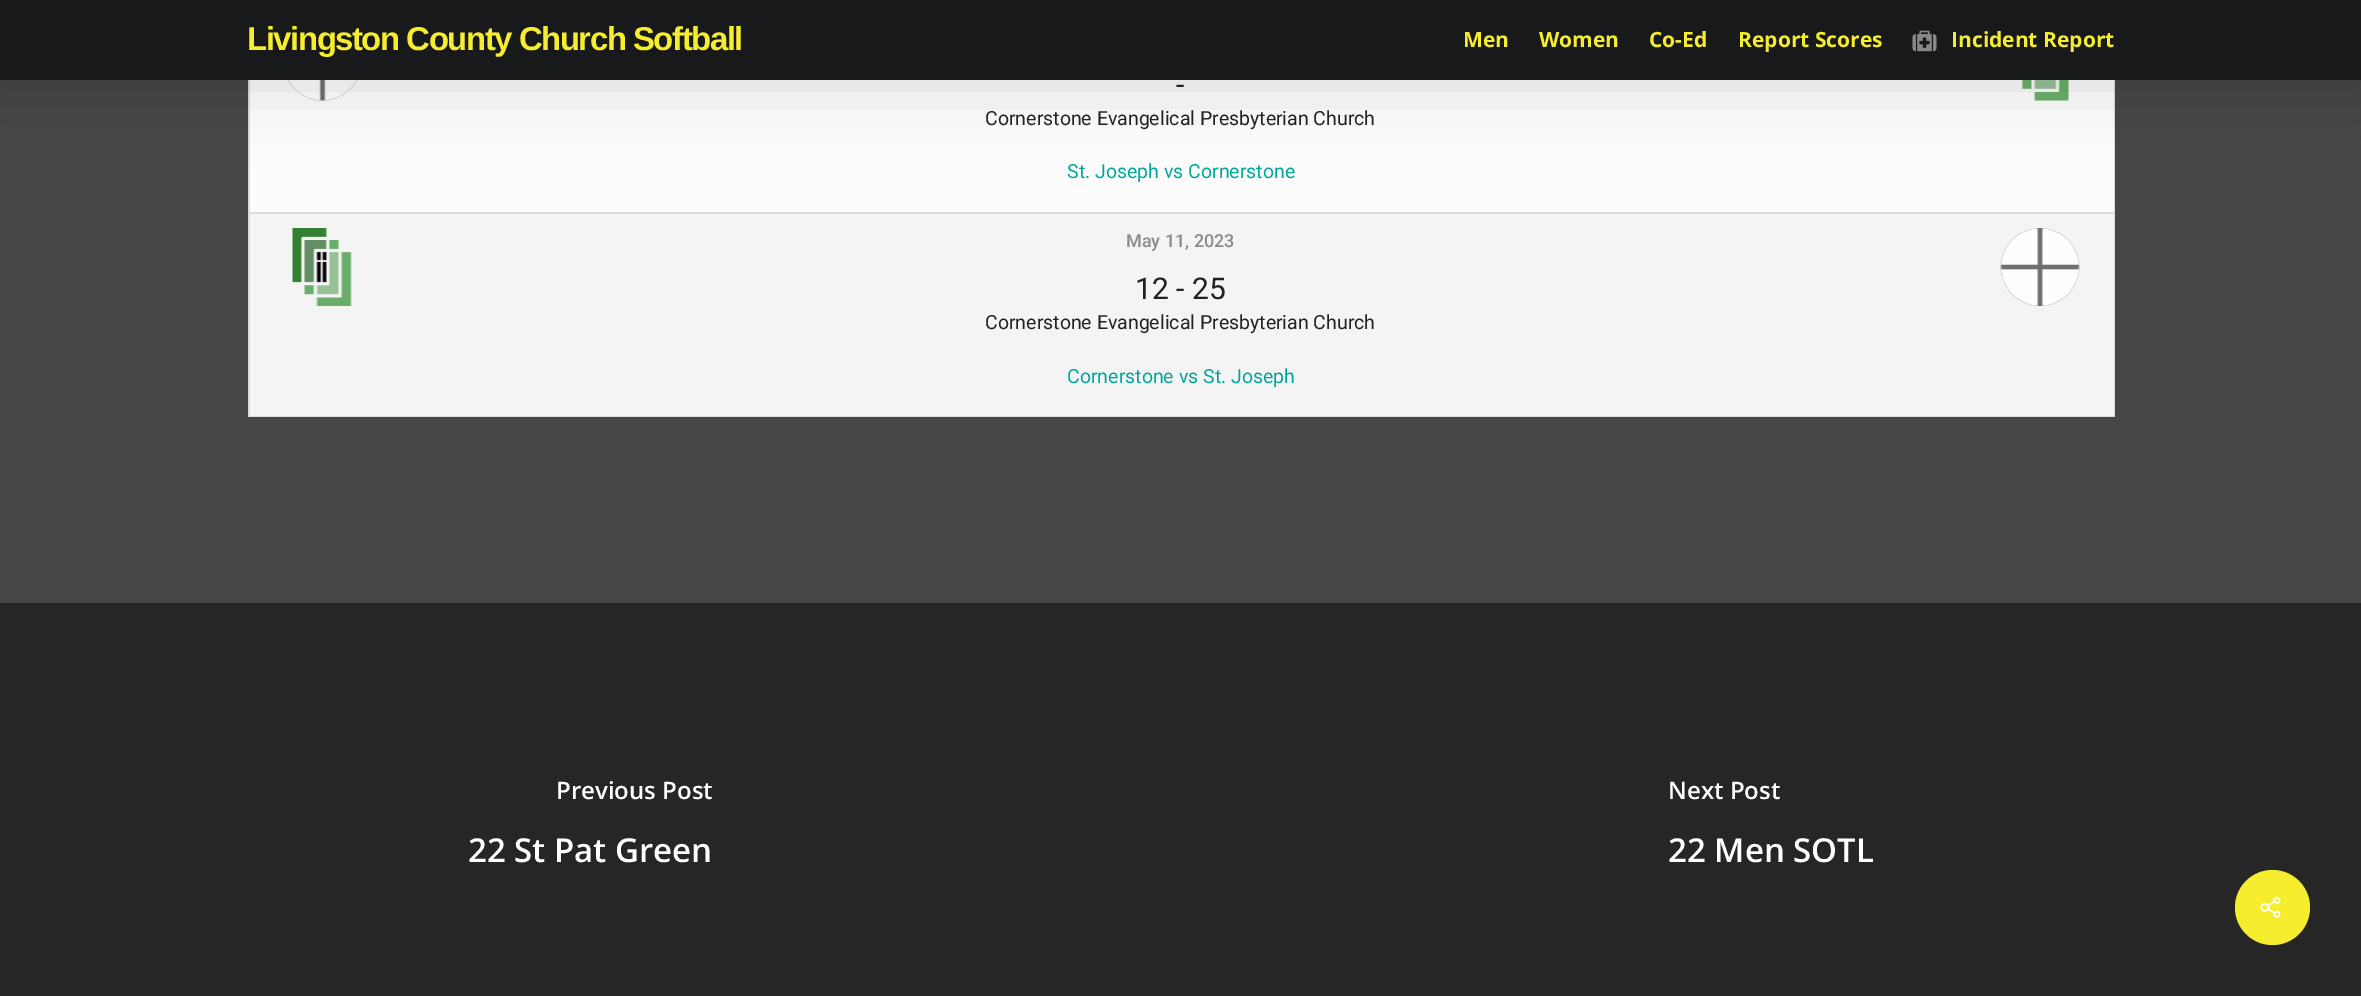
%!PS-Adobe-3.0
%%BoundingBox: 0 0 2361 996
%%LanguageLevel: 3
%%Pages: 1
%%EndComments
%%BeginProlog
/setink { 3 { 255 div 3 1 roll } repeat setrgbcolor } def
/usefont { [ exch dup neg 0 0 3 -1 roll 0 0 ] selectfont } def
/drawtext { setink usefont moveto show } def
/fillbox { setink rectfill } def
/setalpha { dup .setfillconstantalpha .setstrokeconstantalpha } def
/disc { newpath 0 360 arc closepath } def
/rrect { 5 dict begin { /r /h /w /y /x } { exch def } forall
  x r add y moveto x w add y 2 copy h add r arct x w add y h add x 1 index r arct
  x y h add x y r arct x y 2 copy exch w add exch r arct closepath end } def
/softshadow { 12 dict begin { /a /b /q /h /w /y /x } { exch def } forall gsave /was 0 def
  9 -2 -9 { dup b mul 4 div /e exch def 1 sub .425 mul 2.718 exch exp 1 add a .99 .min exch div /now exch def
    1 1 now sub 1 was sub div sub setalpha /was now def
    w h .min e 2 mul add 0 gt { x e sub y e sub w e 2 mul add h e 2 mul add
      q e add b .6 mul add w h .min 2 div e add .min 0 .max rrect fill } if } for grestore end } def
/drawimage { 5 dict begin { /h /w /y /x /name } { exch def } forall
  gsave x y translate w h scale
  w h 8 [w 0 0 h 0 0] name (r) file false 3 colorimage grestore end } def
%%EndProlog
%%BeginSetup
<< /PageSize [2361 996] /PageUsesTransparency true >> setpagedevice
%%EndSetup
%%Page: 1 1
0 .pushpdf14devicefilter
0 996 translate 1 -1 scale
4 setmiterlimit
0 0 2361 996 71 71 71 fillbox
2114 80 1 337 218 218 218 fillbox
248 416 1867 1 218 218 218 fillbox
248 80 2 337 218 218 218 fillbox
250 80 1864 132 252 252 252 fillbox
(assets/img2.rgb) 287 80 71 21 drawimage
(assets/img3.rgb) 2021 80 48 21 drawimage
0 0 0 setink
0 5 2361 79 0 34 0.15 softshadow
0 0 2361 80 24 25 26 fillbox
/LiberationSans-Bold 33 usefont
246 237 47 setink
247 50 moveto -1.5 0 (Livingston County Church Softball) ashow
(Men) 1463 47 /OpenSans-Bold 21 246 237 47 drawtext
(Women) 1539 47 /OpenSans-Bold 21 246 237 47 drawtext
(Co-Ed) 1649 47 /OpenSans-Bold 21 246 237 47 drawtext
(Report Scores) 1738 47 /OpenSans-Bold 21 246 237 47 drawtext
(assets/img1.rgb) 1912 30 25 22 drawimage
(Incident Report) 1951 47 /OpenSans-Bold 21 246 237 47 drawtext
250 214 1864 202 244 244 244 fillbox
(-) 1176 95 /Roboto-Regular 30 34 34 34 drawtext
(Cornerstone Evangelical Presbyterian Church) 985 125 /Roboto-Regular 19.5 34 34 34 drawtext
(St. Joseph vs Cornerstone) 1067 178 /Roboto-Regular 19.5 0 166 156 drawtext
248 212 1867 2 218 218 218 fillbox
(assets/img4.rgb) 292 228 60 78 drawimage
(May 11, 2023) 1126 247 /Roboto-Medium 18 139 139 139 drawtext
(assets/img5.rgb) 2000 228 80 78 drawimage
(12 - 25) 1135 299 /Roboto-Regular 30 34 34 34 drawtext
(Cornerstone Evangelical Presbyterian Church) 985 329 /Roboto-Regular 19.5 34 34 34 drawtext
(Cornerstone vs St. Joseph) 1067 383 /Roboto-Regular 19.5 0 166 156 drawtext
0 603 2361 393 38 38 38 fillbox
(Previous Post) 556 799 /OpenSans-SemiBold 24 255 255 255 drawtext
(22 St Pat Green) 468 862 /OpenSans-SemiBold 33 255 255 255 drawtext
(Next Post) 1668 799 /OpenSans-SemiBold 24 255 255 255 drawtext
(22 Men SOTL) 1668 862 /OpenSans-SemiBold 33 255 255 255 drawtext
246 237 47 setink
2272.5 907.5 37.5 disc fill
(assets/img6.rgb) 2260 896 21 22 drawimage
.poppdf14devicefilter showpage
%%EOF
